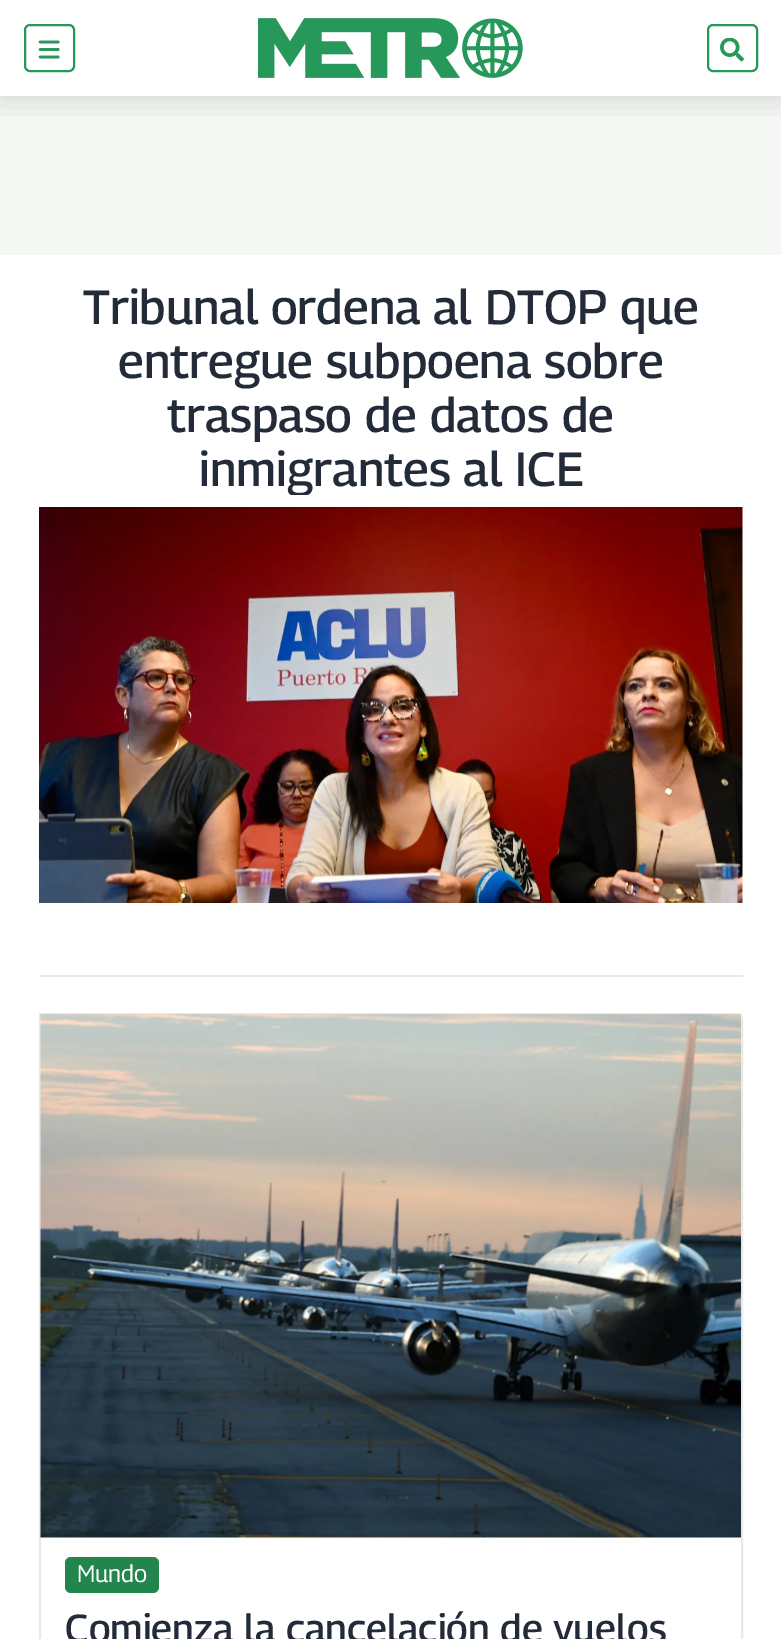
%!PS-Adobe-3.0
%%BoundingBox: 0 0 781 1639
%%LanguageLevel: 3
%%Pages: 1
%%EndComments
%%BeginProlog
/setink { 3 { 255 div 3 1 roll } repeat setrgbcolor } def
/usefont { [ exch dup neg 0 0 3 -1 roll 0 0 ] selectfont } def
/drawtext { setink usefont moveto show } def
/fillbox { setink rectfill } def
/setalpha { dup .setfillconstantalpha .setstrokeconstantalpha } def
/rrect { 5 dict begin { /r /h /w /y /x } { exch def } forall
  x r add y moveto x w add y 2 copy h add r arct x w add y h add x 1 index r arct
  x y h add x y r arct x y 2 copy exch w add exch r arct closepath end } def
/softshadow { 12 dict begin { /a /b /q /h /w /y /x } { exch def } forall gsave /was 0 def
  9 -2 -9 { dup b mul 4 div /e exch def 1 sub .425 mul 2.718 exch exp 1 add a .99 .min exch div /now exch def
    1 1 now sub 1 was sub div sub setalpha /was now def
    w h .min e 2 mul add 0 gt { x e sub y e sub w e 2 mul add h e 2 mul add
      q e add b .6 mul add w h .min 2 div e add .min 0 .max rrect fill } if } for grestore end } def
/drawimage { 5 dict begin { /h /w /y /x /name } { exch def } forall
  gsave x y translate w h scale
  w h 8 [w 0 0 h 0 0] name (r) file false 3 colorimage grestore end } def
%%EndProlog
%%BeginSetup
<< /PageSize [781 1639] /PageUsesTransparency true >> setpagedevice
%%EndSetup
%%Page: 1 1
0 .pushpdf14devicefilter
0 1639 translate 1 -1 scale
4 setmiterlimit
0 0 781 1639 255 255 255 fillbox
0 96 781 159 245 247 245 fillbox
gsave
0 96 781 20 rectclip
0 0 0 setink
0 0 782 96 0 18 0.15 softshadow
grestore
39 152 90 setink
2 setlinewidth
25 25 49 46 5 rrect stroke
(assets/img1.rgb) 38 40 22 19 drawimage
(assets/img2.rgb) 258 18 265 60 drawimage
708 25 49 46 5 rrect stroke
(assets/img3.rgb) 720 38 24 24 drawimage
(Tribunal ordena al DTOP que) 83 324 /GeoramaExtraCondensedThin-Medium 48 35 43 57 drawtext
(entregue subpoena sobre) 118 378 /GeoramaExtraCondensedThin-Medium 48 35 43 57 drawtext
(traspaso de datos de) 167 432 /GeoramaExtraCondensedThin-Medium 48 35 43 57 drawtext
gsave
39 279 704 216 rectclip
(inmigrantes al ICE) 199 486 /GeoramaExtraCondensedThin-Medium 48 35 43 57 drawtext
grestore
(assets/img4.rgb) 39 507 704 396 drawimage
39 975 704 2 231 235 231 fillbox
40 1014 moveto 737 1014 lineto 740 1014 742 1016 742 1019 curveto 742 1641 lineto 742 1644 740 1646 737 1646 curveto 40 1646 lineto closepath stroke
(assets/img5.rgb) 40 1014 701 524 drawimage
35 133 75 setink
65 1557 94 36 6 rrect fill
(Mundo) 77 1582 /GeoramaExtraCondensedThin-Regular 24 255 255 255 drawtext
(Comienza la cancelación de vuelos) 65 1642 /GeoramaExtraCondensedThin-Medium 39 35 43 57 drawtext
.poppdf14devicefilter showpage
%%EOF
